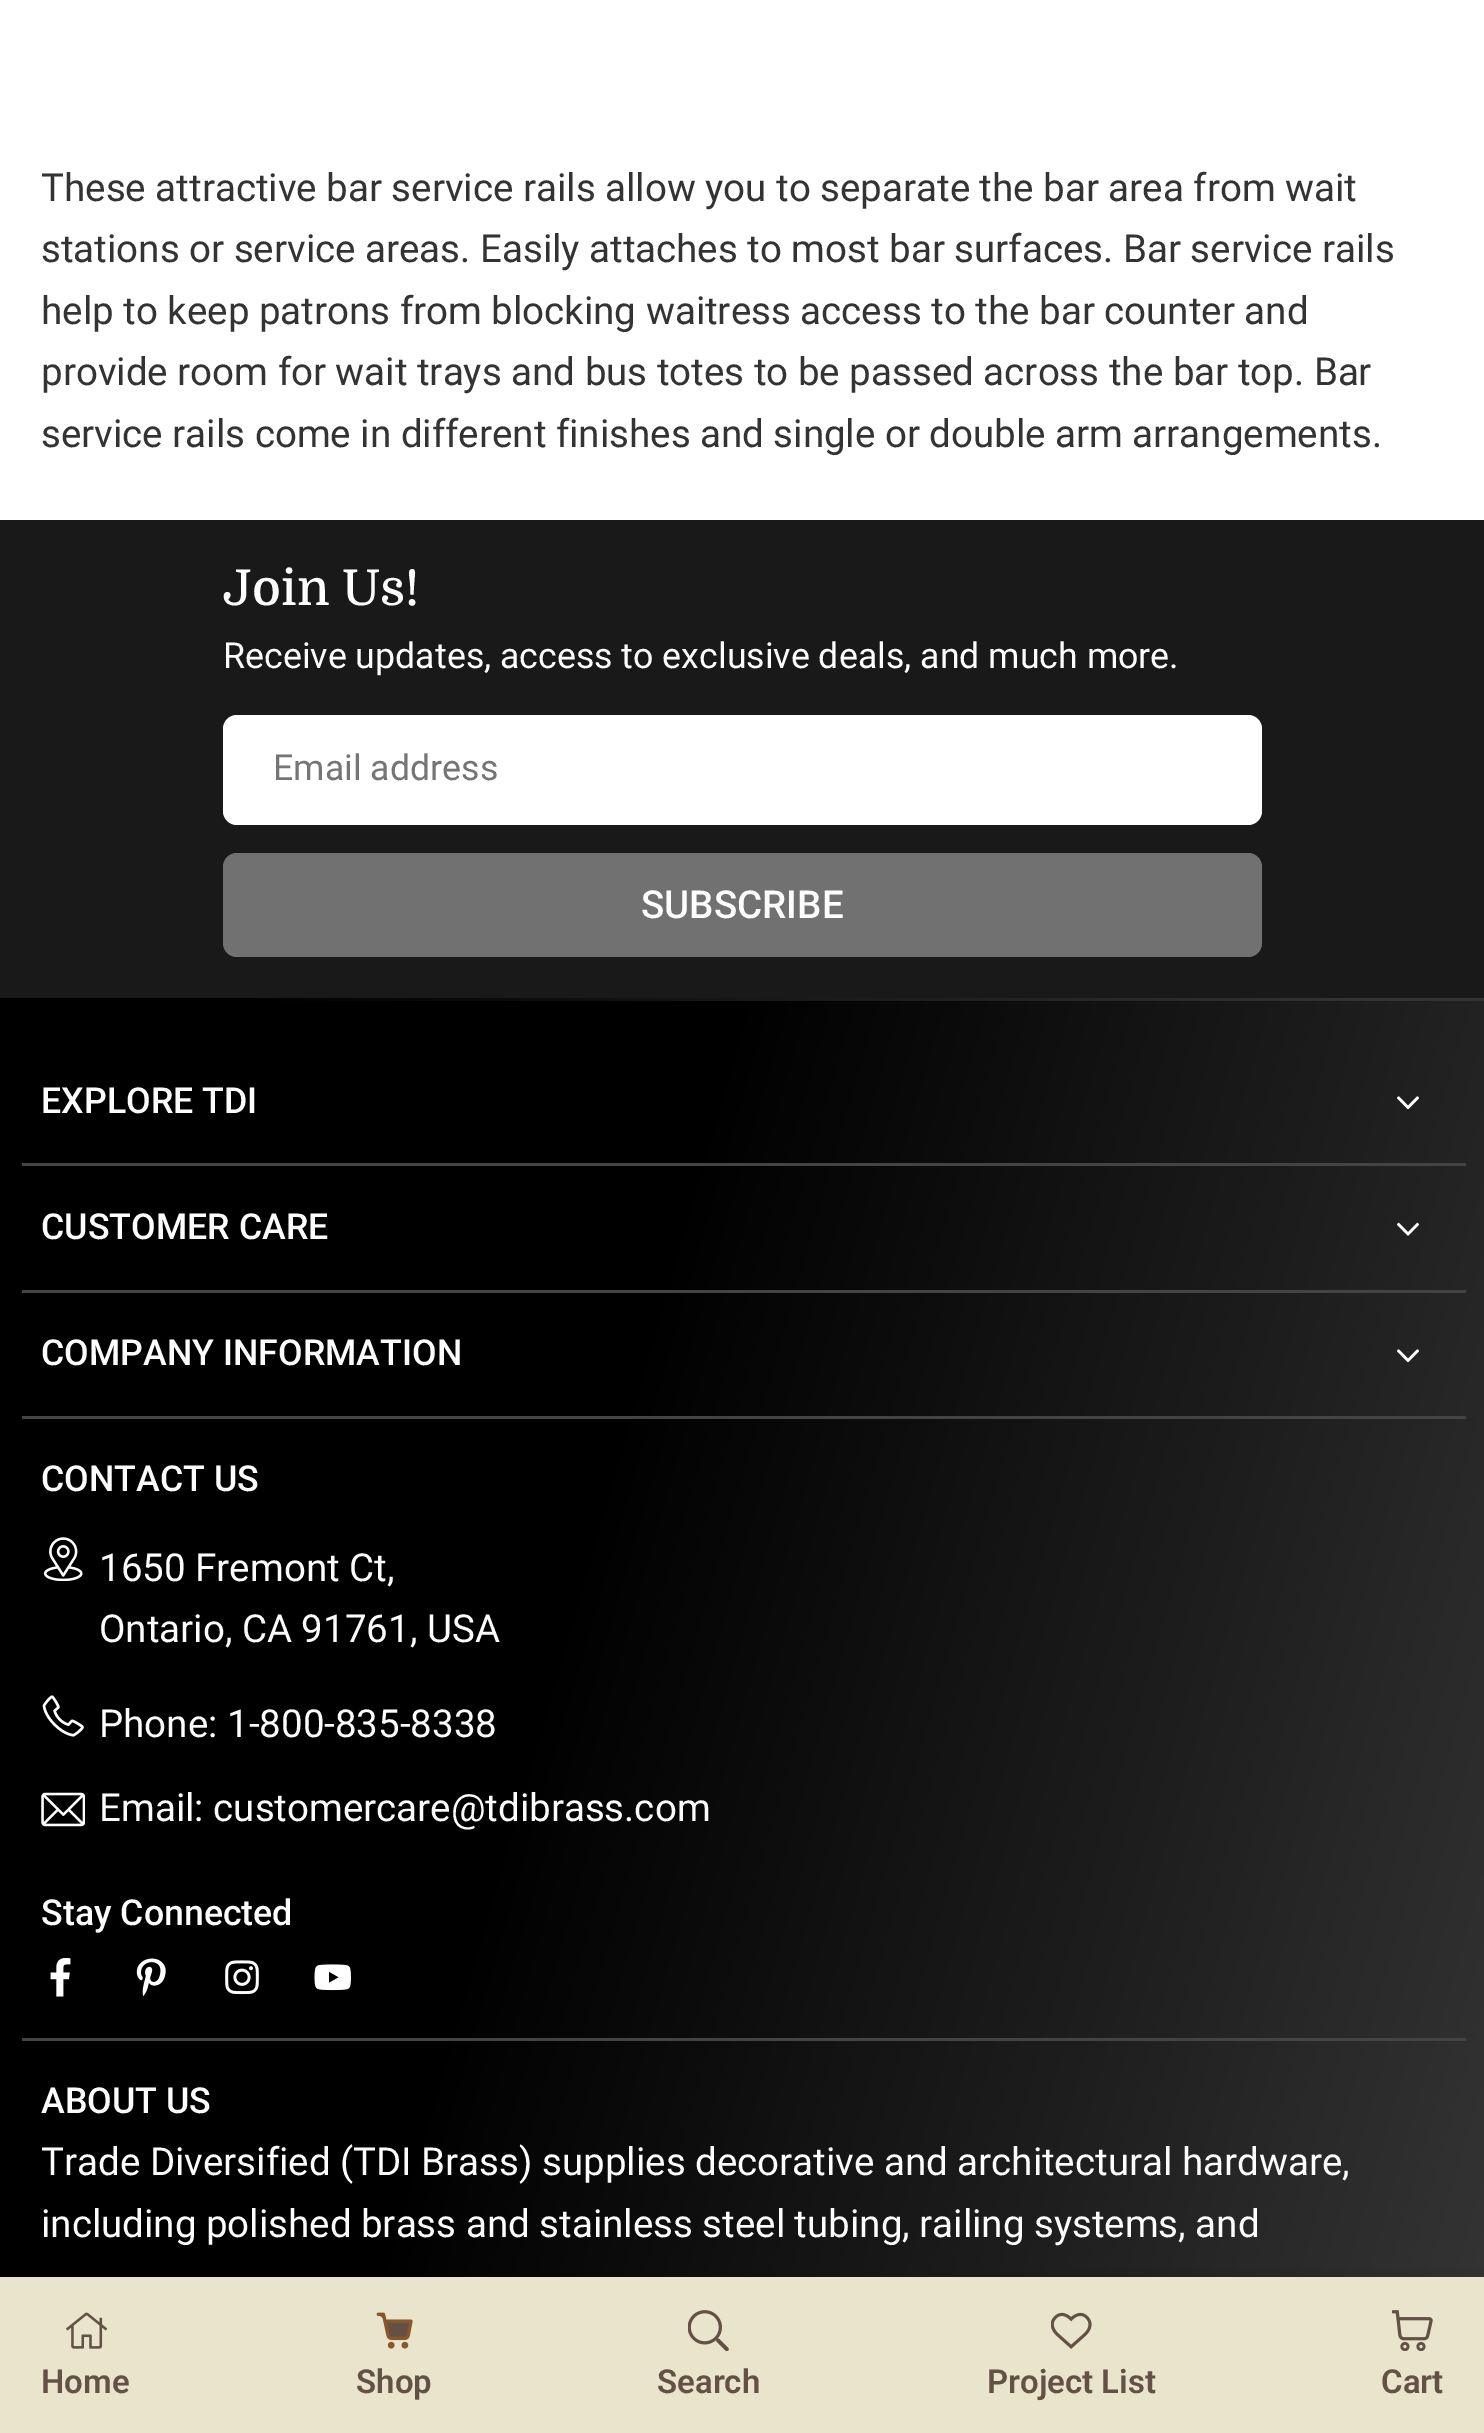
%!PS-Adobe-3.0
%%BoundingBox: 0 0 1484 2433
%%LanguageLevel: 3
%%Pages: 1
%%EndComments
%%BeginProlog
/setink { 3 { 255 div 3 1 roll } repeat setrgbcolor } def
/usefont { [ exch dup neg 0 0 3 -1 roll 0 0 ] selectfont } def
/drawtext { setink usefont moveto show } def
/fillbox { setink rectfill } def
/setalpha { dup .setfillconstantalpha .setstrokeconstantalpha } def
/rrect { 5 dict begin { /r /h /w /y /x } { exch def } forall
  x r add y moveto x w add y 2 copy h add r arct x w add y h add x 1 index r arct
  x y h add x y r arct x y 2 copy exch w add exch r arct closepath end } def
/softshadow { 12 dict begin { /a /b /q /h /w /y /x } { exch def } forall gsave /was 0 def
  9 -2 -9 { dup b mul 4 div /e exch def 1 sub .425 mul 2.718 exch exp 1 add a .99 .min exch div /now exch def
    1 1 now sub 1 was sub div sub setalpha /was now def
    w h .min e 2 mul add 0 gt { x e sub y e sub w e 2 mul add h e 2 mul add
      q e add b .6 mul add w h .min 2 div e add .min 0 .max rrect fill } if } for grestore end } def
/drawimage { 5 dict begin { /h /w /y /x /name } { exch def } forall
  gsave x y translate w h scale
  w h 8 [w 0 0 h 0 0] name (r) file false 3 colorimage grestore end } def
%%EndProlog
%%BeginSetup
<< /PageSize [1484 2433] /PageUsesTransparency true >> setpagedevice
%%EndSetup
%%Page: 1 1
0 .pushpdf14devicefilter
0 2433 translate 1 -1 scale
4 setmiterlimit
0 0 1484 2433 255 255 255 fillbox
(These attractive bar service rails allow you to separate the bar area from wait) 41 201 /Roboto-Regular 38.5 51 51 51 drawtext
(stations or service areas. Easily attaches to most bar surfaces. Bar service rails) 41 262 /Roboto-Regular 38.5 51 51 51 drawtext
(help to keep patrons from blocking waitress access to the bar counter and) 41 324 /Roboto-Regular 38.5 51 51 51 drawtext
(provide room for wait trays and bus totes to be passed across the bar top. Bar) 41 385 /Roboto-Regular 38.5 51 51 51 drawtext
(service rails come in different finishes and single or double arm arrangements.) 41 447 /Roboto-Regular 38.5 51 51 51 drawtext
0 520 1484 478 25 25 25 fillbox
(Join Us!) 223 605 /Domine-Medium 49.5 253 253 253 drawtext
(Receive updates, access to exclusive deals, and much more.) 223 668 /Roboto-Regular 35.75 253 253 253 drawtext
255 255 255 setink
223 715 1039 110 14 rrect fill
(Email address) 273 780 /Roboto-Regular 35.75 117 117 117 drawtext
113 113 113 setink
223 853 1039 104 14 rrect fill
(SUBSCRIBE) 641 918 /Roboto-Medium 38.5 253 253 253 drawtext
gsave 0 998 moveto 1484 998 lineto 1484 1001 lineto 0 1001 lineto closepath clip newpath
<< /ShadingType 2 /ColorSpace /DeviceRGB /Coords [-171 -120 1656 404] /Extend [true true] /Function << /FunctionType 3 /Domain [0 1] /Functions [<< /FunctionType 2 /Domain [0 1] /C0 [0 0 0] /C1 [0 0 0] /N 1 >> << /FunctionType 2 /Domain [0 1] /C0 [0 0 0] /C1 [0.2 0.2 0.2] /N 1 >> << /FunctionType 2 /Domain [0 1] /C0 [0.2 0.2 0.2] /C1 [0.2 0.2 0.2] /N 1 >>] /Bounds [0.37 0.93] /Encode [0 1 0 1 0 1] >> >> shfill grestore
gsave 0 1001 moveto 1484 1001 lineto 1484 2277 lineto 0 2277 lineto closepath clip newpath
<< /ShadingType 2 /ColorSpace /DeviceRGB /Coords [-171 1598 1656 2122] /Extend [true true] /Function << /FunctionType 3 /Domain [0 1] /Functions [<< /FunctionType 2 /Domain [0 1] /C0 [0 0 0] /C1 [0 0 0] /N 1 >> << /FunctionType 2 /Domain [0 1] /C0 [0 0 0] /C1 [0.2 0.2 0.2] /N 1 >> << /FunctionType 2 /Domain [0 1] /C0 [0.2 0.2 0.2] /C1 [0.2 0.2 0.2] /N 1 >>] /Bounds [0.37 0.93] /Encode [0 1 0 1 0 1] >> >> shfill grestore
(EXPLORE TDI) 41 1113 /Roboto-Medium 35.75 253 253 253 drawtext
(assets/img1.rgb) 1397 1096 22 14 drawimage
22 1163 1444 3 68 68 68 fillbox
(CUSTOMER CARE) 41 1239 /Roboto-Medium 35.75 253 253 253 drawtext
(assets/img2.rgb) 1397 1222 22 14 drawimage
22 1290 1444 3 68 68 68 fillbox
(COMPANY INFORMATION) 41 1365 /Roboto-Medium 35.75 253 253 253 drawtext
(assets/img3.rgb) 1397 1349 22 14 drawimage
22 1416 1444 3 68 68 68 fillbox
(CONTACT US) 41 1491 /Roboto-Medium 35.75 253 253 253 drawtext
(assets/img4.rgb) 43 1537 40 44 drawimage
(1650 Fremont Ct,) 99 1581 /Roboto-Regular 38.5 253 253 253 drawtext
(Ontario, CA 91761, USA) 99 1642 /Roboto-Regular 38.5 253 253 253 drawtext
(assets/img5.rgb) 42 1695 42 42 drawimage
(Phone: 1-800-835-8338) 99 1737 /Roboto-Regular 38.5 253 253 253 drawtext
(assets/img6.rgb) 41 1792 44 35 drawimage
(Email: customercare@tdibrass.com) 99 1821 /Roboto-Regular 38.5 253 253 253 drawtext
(Stay Connected) 41 1925 /Roboto-Medium 35.75 253 253 253 drawtext
(assets/img7.rgb) 50 1958 21 39 drawimage
(assets/img8.rgb) 136 1958 30 38 drawimage
(assets/img9.rgb) 225 1960 34 35 drawimage
(assets/img10.rgb) 314 1964 37 27 drawimage
22 2038 1444 3 68 68 68 fillbox
(ABOUT US) 41 2113 /Roboto-Medium 35.75 253 253 253 drawtext
(Trade Diversified \(TDI Brass\) supplies decorative and architectural hardware,) 41 2175 /Roboto-Regular 38.5 253 253 253 drawtext
(including polished brass and stainless steel tubing, railing systems, and) 41 2237 /Roboto-Regular 38.5 253 253 253 drawtext
0 0 0 setink
0 2277 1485 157 0 14 0.1 softshadow
0 2277 1484 156 233 229 204 fillbox
(assets/img11.rgb) 66 2312 41 37 drawimage
(Home) 41 2393 /Roboto-SemiBold 33 99 81 69 drawtext
(assets/img12.rgb) 376 2312 37 37 drawimage
(Shop) 356 2393 /Roboto-SemiBold 33 99 81 69 drawtext
(assets/img13.rgb) 688 2310 41 41 drawimage
(Search) 657 2393 /Roboto-SemiBold 33 99 81 69 drawtext
(assets/img14.rgb) 1051 2312 41 37 drawimage
(Project List) 987 2393 /Roboto-SemiBold 33 99 81 69 drawtext
(assets/img15.rgb) 1392 2310 41 41 drawimage
(Cart) 1381 2393 /Roboto-SemiBold 33 99 81 69 drawtext
.poppdf14devicefilter showpage
%%EOF
